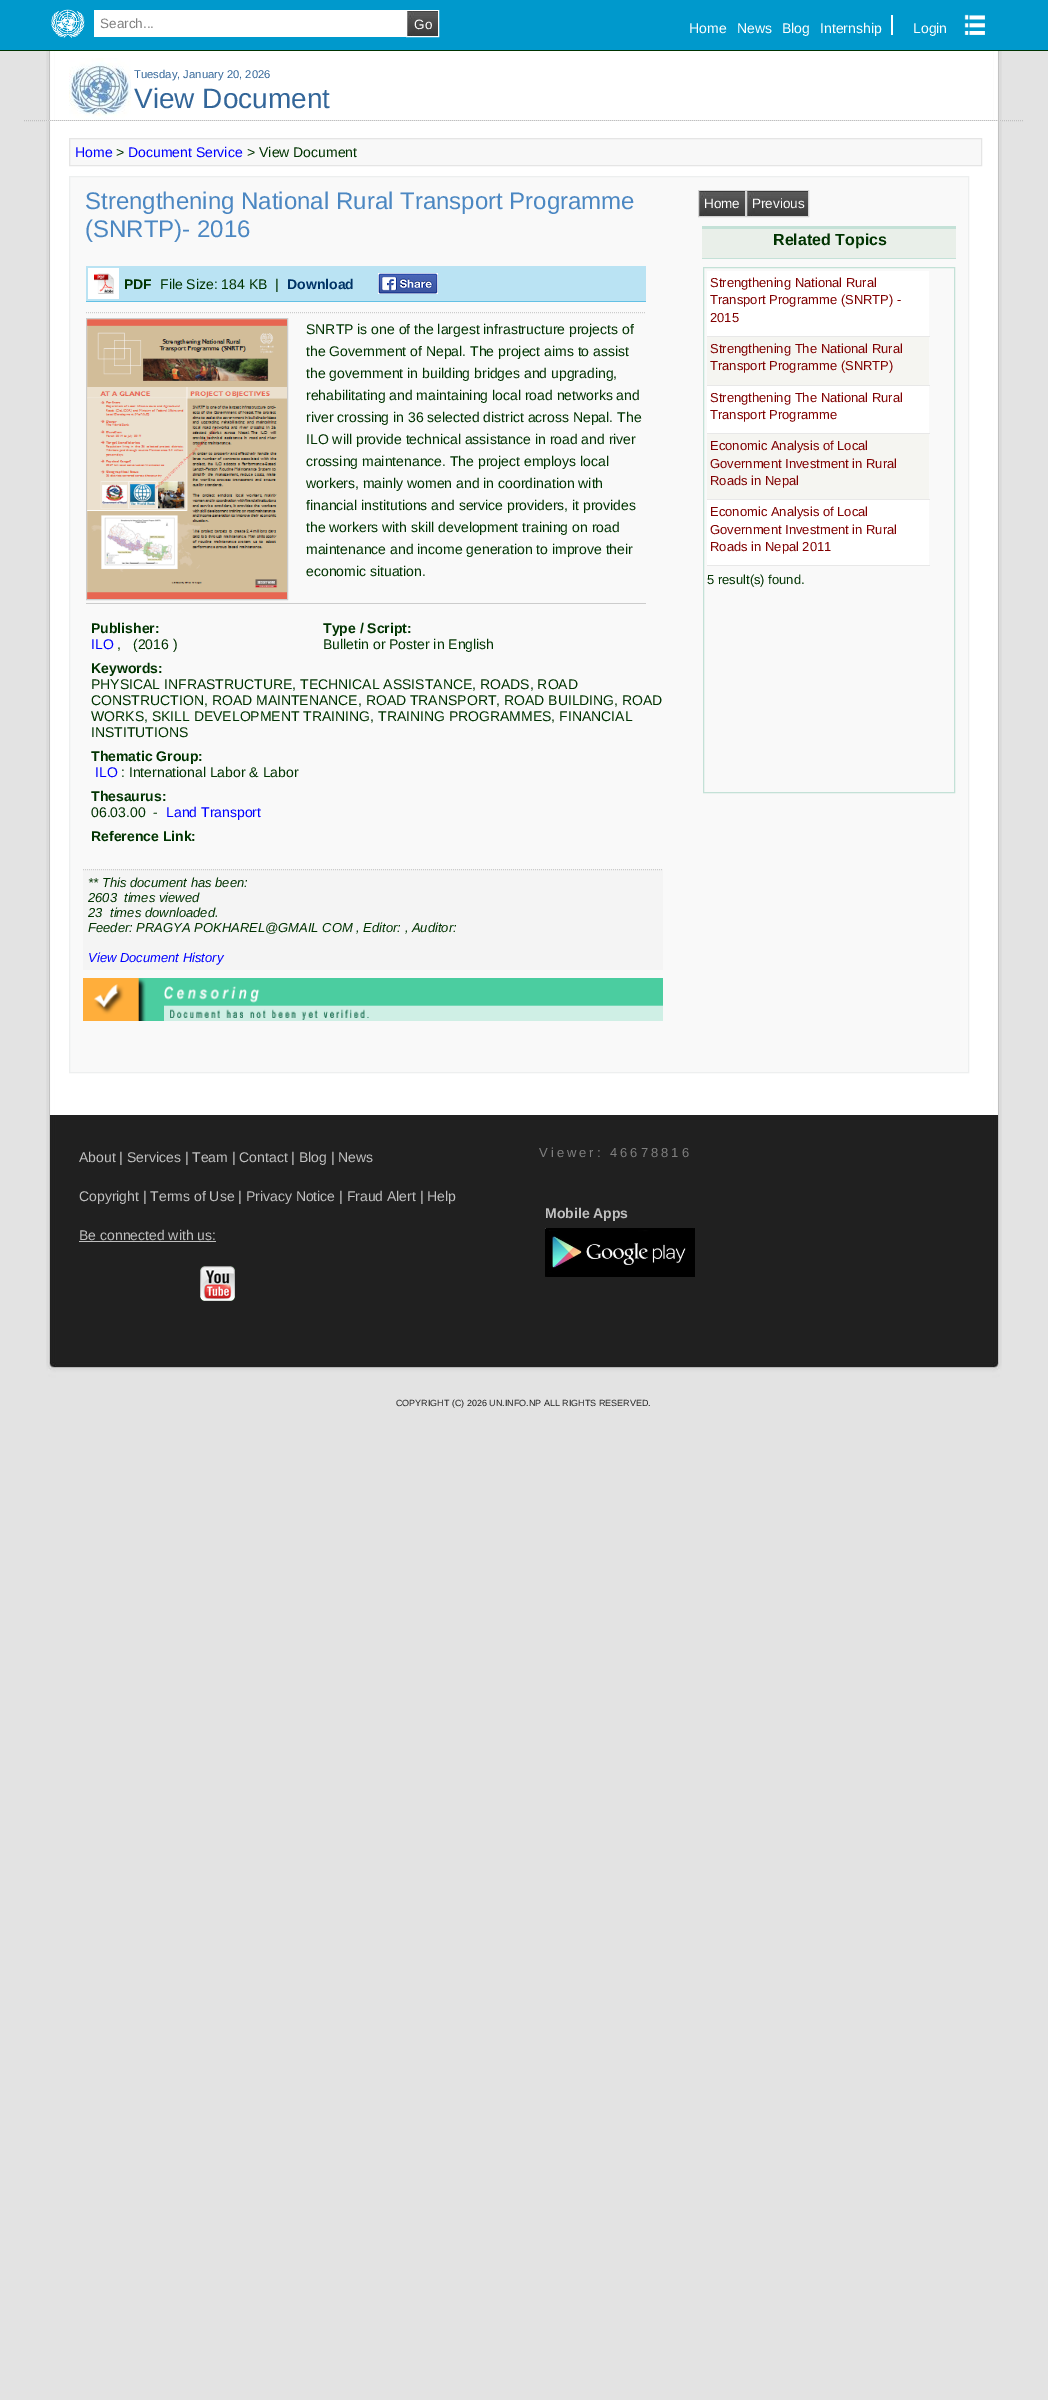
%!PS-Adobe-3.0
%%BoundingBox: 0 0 1048 2400
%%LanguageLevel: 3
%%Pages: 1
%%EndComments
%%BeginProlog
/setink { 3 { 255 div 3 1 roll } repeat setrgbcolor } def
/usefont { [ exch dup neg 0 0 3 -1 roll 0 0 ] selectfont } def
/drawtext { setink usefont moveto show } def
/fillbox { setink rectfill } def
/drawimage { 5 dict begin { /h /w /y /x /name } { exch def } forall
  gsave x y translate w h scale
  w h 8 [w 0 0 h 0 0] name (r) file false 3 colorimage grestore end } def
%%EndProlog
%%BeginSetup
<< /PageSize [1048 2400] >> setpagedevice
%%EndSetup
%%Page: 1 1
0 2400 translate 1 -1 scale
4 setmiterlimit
0 0 1048 2400 227 227 227 fillbox
0 0 1048 50 0 153 204 fillbox
0 50 1048 1 0 51 0 fillbox
(assets/img1.rgb) 51 9 34 29 drawimage
94 10 312 27 255 255 255 fillbox
(Search...) 100 28 /LiberationSans-Regular 13.5 128 128 128 drawtext
(assets/img2.rgb) 407 11 31 25 drawimage
255 255 255 setink
406.5 10.5 32 26 rectstroke
(Go) 414 29 /LiberationSans-Regular 13.5 255 255 255 drawtext
(Home) 689 33 /LiberationSans-Regular 14 255 255 255 drawtext
(News) 737 33 /LiberationSans-Regular 14 255 255 255 drawtext
(Blog) 782 33 /LiberationSans-Regular 14 255 255 255 drawtext
(Internship) 820 33 /LiberationSans-Regular 14 255 255 255 drawtext
891 15 2 20 255 255 255 fillbox
(Login) 913 33 /LiberationSans-Regular 14 255 255 255 drawtext
(assets/img3.rgb) 964 14 21 21 drawimage
(assets/img4.rgb) 46 51 956 69 drawimage
192 192 192 setink
[1 1] 0 setdash
24 120.5 moveto 1024 120.5 lineto stroke
(assets/img5.rgb) 69 58 62 62 drawimage
(Tuesday, January 20, 2026) 134 78 /LiberationSans-Regular 11.25 51 102 153 drawtext
(View Document) 134 108 /LiberationSans-Regular 28 51 102 153 drawtext
(assets/img6.rgb) 46 121 956 994 drawimage
248 248 248 setink
69.5 138.5 moveto 981.5 138.5 lineto 981.5 165.5 lineto 69.5 165.5 lineto closepath gsave fill grestore
229 229 229 setink
[] 0 setdash
stroke
(Home) 75 157 /LiberationSans-Regular 14 0 0 255 drawtext
(>) 116 157 /LiberationSans-Regular 14 0 51 0 drawtext
(Document Service) 128 157 /LiberationSans-Regular 14 0 0 255 drawtext
(> View Document) 247 157 /LiberationSans-Regular 14 0 51 0 drawtext
249 249 249 setink
69.5 176.5 moveto 968.5 176.5 lineto 968.5 1072.5 lineto 69.5 1072.5 lineto closepath gsave fill grestore
237 239 239 setink
stroke
(Strengthening National Rural Transport Programme) 85 209 /LiberationSans-Regular 24 75 135 194 drawtext
(\(SNRTP\)- 2016) 85 237 /LiberationSans-Regular 24 75 135 194 drawtext
86 266 560 35 186 227 243 fillbox
86 301 560 1 99 192 228 fillbox
88 268 31 31 255 255 255 fillbox
(assets/img7.rgb) 94 273 20 21 drawimage
(PDF) 124 289 /LiberationSans-Bold 14 0 51 0 drawtext
(File Size: 184 KB) 160 289 /LiberationSans-Regular 14 0 51 0 drawtext
(|) 275 289 /LiberationSans-Regular 14 0 51 0 drawtext
(Download) 287 289 /LiberationSans-Bold 14 0 51 102 drawtext
(assets/img8.rgb) 378 273 60 21 drawimage
204 204 204 setink
[1 1] 0 setdash
86 312.5 moveto 646 312.5 lineto stroke
86 603 560 1 204 204 204 fillbox
[] 0 setdash
86.5 318.5 201 281 rectstroke
(assets/img9.rgb) 87 319 200 280 drawimage
(SNRTP is one of the largest infrastructure projects of) 306 334 /LiberationSans-Regular 14 0 51 0 drawtext
(the Government of Nepal. The project aims to assist) 306 356 /LiberationSans-Regular 14 0 51 0 drawtext
(the government in building bridges and upgrading,) 306 378 /LiberationSans-Regular 14 0 51 0 drawtext
(rehabilitating and maintaining local road networks and) 306 400 /LiberationSans-Regular 14 0 51 0 drawtext
(river crossing in 36 selected district across Nepal. The) 306 422 /LiberationSans-Regular 14 0 51 0 drawtext
(ILO will provide technical assistance in road and river) 306 444 /LiberationSans-Regular 14 0 51 0 drawtext
(crossing maintenance. The project employs local) 306 466 /LiberationSans-Regular 14 0 51 0 drawtext
(workers, mainly women and in coordination with) 306 488 /LiberationSans-Regular 14 0 51 0 drawtext
(financial institutions and service providers, it provides) 306 510 /LiberationSans-Regular 14 0 51 0 drawtext
(the workers with skill development training on road) 306 532 /LiberationSans-Regular 14 0 51 0 drawtext
(maintenance and income generation to improve their) 306 554 /LiberationSans-Regular 14 0 51 0 drawtext
(economic situation.) 306 576 /LiberationSans-Regular 14 0 51 0 drawtext
(Publisher:) 91 633 /LiberationSans-Bold 14 0 51 0 drawtext
(ILO) 91 649 /LiberationSans-Regular 14 0 0 255 drawtext
(,) 117 649 /LiberationSans-Regular 14 0 51 0 drawtext
(\(2016 \)) 133 649 /LiberationSans-Regular 14 0 51 0 drawtext
(Type / Script:) 323 633 /LiberationSans-Bold 14 0 51 0 drawtext
(Bulletin or Poster in English) 323 649 /LiberationSans-Regular 14 0 51 0 drawtext
(Keywords:) 91 673 /LiberationSans-Bold 14 0 51 0 drawtext
(PHYSICAL INFRASTRUCTURE, TECHNICAL ASSISTANCE, ROADS, ROAD) 91 689 /LiberationSans-Regular 14 0 51 0 drawtext
(CONSTRUCTION, ROAD MAINTENANCE, ROAD TRANSPORT, ROAD BUILDING, ROAD) 91 705 /LiberationSans-Regular 14 0 51 0 drawtext
(WORKS, SKILL DEVELOPMENT TRAINING, TRAINING PROGRAMMES, FINANCIAL) 91 721 /LiberationSans-Regular 14 0 51 0 drawtext
(INSTITUTIONS) 91 737 /LiberationSans-Regular 14 0 51 0 drawtext
(Thematic Group:) 91 761 /LiberationSans-Bold 14 0 51 0 drawtext
(ILO) 95 777 /LiberationSans-Regular 14 0 0 255 drawtext
(: International Labor & Labor) 121 777 /LiberationSans-Regular 14 0 51 0 drawtext
(Thesaurus:) 91 801 /LiberationSans-Bold 14 0 51 0 drawtext
(06.03.00) 91 817 /LiberationSans-Regular 14 0 51 0 drawtext
(-) 153 817 /LiberationSans-Regular 14 0 51 0 drawtext
(Land Transport) 166 817 /LiberationSans-Regular 14 0 0 255 drawtext
(Reference Link:) 91 841 /LiberationSans-Bold 14 0 51 0 drawtext
83 869 580 101 244 244 244 fillbox
204 204 204 setink
[1 1] 0 setdash
83 869.5 moveto 663 869.5 lineto stroke
(** This document has been:) 88 887 /LiberationSans-Italic 13 0 51 0 drawtext
(2603) 88 902 /LiberationSans-Italic 13 0 51 0 drawtext
(times viewed) 124 902 /LiberationSans-Italic 13 0 51 0 drawtext
(23) 88 917 /LiberationSans-Italic 13 0 51 0 drawtext
(times downloaded.) 110 917 /LiberationSans-Italic 13 0 51 0 drawtext
(Feeder: PRAGYA POKHAREL@GMAIL COM , Editor: , Auditor:) 88 932 /LiberationSans-Italic 13 0 51 0 drawtext
(View Document History) 88 962 /LiberationSans-Italic 13 0 0 255 drawtext
(assets/img10.rgb) 83 978 580 43 drawimage
(assets/img11.rgb) 699 191 46 25 drawimage
211 211 211 setink
[] 0 setdash
698.5 190.5 47 26 rectstroke
(Home) 704 208 /LiberationSans-Regular 13.5 255 255 255 drawtext
(assets/img12.rgb) 747 191 61 25 drawimage
211 211 211 setink
746.5 190.5 62 26 rectstroke
(Previous) 752 208 /LiberationSans-Regular 13.5 255 255 255 drawtext
702 229 254 29 233 239 233 fillbox
702 226 254 3 196 225 215 fillbox
702 258 254 1 196 225 215 fillbox
(Related Topics) 773 245 /LiberationSans-Bold 16 0 51 0 drawtext
196 225 215 setink
703.5 267.5 251 525 rectstroke
707 271 222 294 255 255 255 fillbox
707 336 223 1 232 232 232 fillbox
(Strengthening National Rural) 710 287 /LiberationSans-Regular 13 128 0 0 drawtext
(Transport Programme \(SNRTP\) -) 710 304 /LiberationSans-Regular 13 128 0 0 drawtext
(2015) 710 322 /LiberationSans-Regular 13 128 0 0 drawtext
707 337 222 48 245 245 241 fillbox
707 385 223 1 232 232 232 fillbox
(Strengthening The National Rural) 710 353 /LiberationSans-Regular 13 128 0 0 drawtext
(Transport Programme \(SNRTP\)) 710 370 /LiberationSans-Regular 13 128 0 0 drawtext
707 433 223 1 232 232 232 fillbox
(Strengthening The National Rural) 710 402 /LiberationSans-Regular 13 128 0 0 drawtext
(Transport Programme) 710 419 /LiberationSans-Regular 13 128 0 0 drawtext
707 434 222 65 245 245 241 fillbox
707 499 223 1 232 232 232 fillbox
(Economic Analysis of Local) 710 450 /LiberationSans-Regular 13 128 0 0 drawtext
(Government Investment in Rural) 710 468 /LiberationSans-Regular 13 128 0 0 drawtext
(Roads in Nepal) 710 485 /LiberationSans-Regular 13 128 0 0 drawtext
707 565 223 1 232 232 232 fillbox
(Economic Analysis of Local) 710 516 /LiberationSans-Regular 13 128 0 0 drawtext
(Government Investment in Rural) 710 534 /LiberationSans-Regular 13 128 0 0 drawtext
(Roads in Nepal 2011) 710 551 /LiberationSans-Regular 13 128 0 0 drawtext
(5 result\(s\) found.) 707 584 /LiberationSans-Regular 13 0 51 0 drawtext
(assets/img13.rgb) 46 1115 956 247 drawimage
(assets/img14.rgb) 46 1362 956 26 drawimage
(About | Services | Team | Contact | Blog | News) 79 1162 /LiberationSans-Regular 14 192 192 192 drawtext
(Copyright | Terms of Use | Privacy Notice | Fraud Alert | Help) 79 1201 /LiberationSans-Regular 14 192 192 192 drawtext
(Be connected with us:) 79 1240 /LiberationSans-Regular 14 192 192 192 drawtext
79 1241 137 1 191 191 191 fillbox
(assets/img15.rgb) 200 1266 35 35 drawimage
/LiberationSans-Regular 13 usefont
128 128 128 setink
539 1157 moveto 3 0 (Viewer: 46678816) ashow
(Mobile Apps) 545 1218 /LiberationSans-Bold 14 192 192 192 drawtext
(assets/img16.rgb) 545 1228 150 49 drawimage
(COPYRIGHT \(C\) 2026 UN.INFO.NP ALL RIGHTS RESERVED.) 396 1406 /LiberationSans-Regular 9 32 32 32 drawtext
showpage
%%EOF
